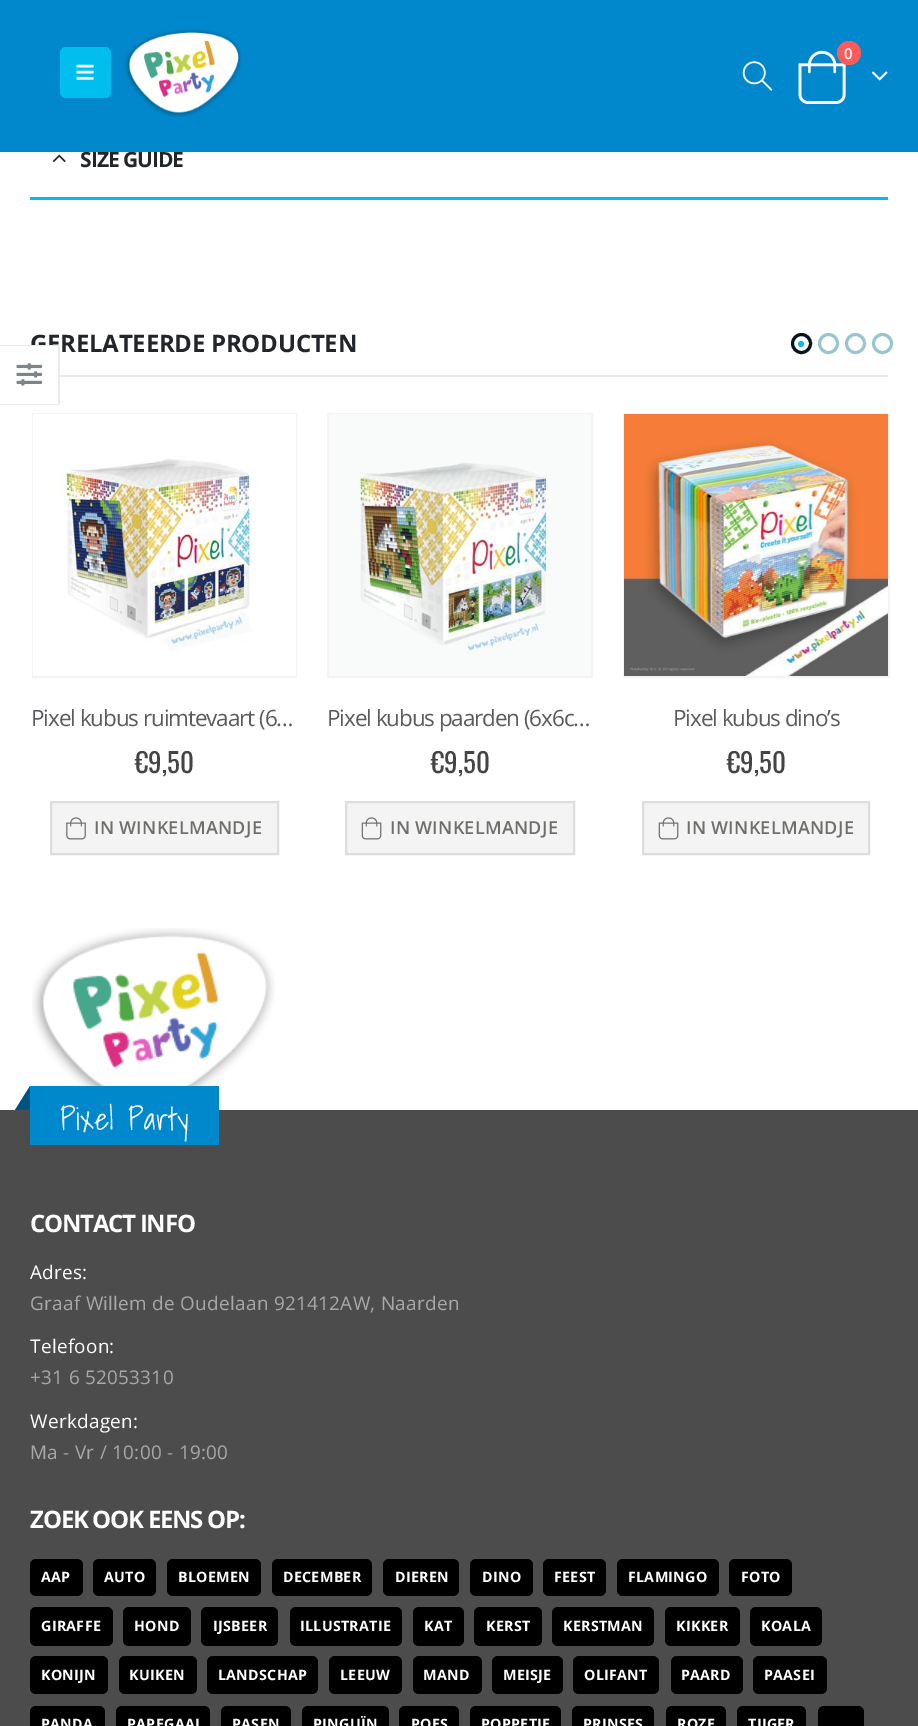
%!PS-Adobe-3.0
%%BoundingBox: 0 0 918 1726
%%LanguageLevel: 3
%%Pages: 1
%%EndComments
%%BeginProlog
/setink { 3 { 255 div 3 1 roll } repeat setrgbcolor } def
/usefont { [ exch dup neg 0 0 3 -1 roll 0 0 ] selectfont } def
/drawtext { setink usefont moveto show } def
/fillbox { setink rectfill } def
/setalpha { dup .setfillconstantalpha .setstrokeconstantalpha } def
/disc { newpath 0 360 arc closepath } def
/rrect { 5 dict begin { /r /h /w /y /x } { exch def } forall
  x r add y moveto x w add y 2 copy h add r arct x w add y h add x 1 index r arct
  x y h add x y r arct x y 2 copy exch w add exch r arct closepath end } def
/softshadow { 12 dict begin { /a /b /q /h /w /y /x } { exch def } forall gsave /was 0 def
  9 -2 -9 { dup b mul 4 div /e exch def 1 sub .425 mul 2.718 exch exp 1 add a .99 .min exch div /now exch def
    1 1 now sub 1 was sub div sub setalpha /was now def
    w h .min e 2 mul add 0 gt { x e sub y e sub w e 2 mul add h e 2 mul add
      q e add b .6 mul add w h .min 2 div e add .min 0 .max rrect fill } if } for grestore end } def
/drawimage { 5 dict begin { /h /w /y /x /name } { exch def } forall
  gsave x y translate w h scale
  w h 8 [w 0 0 h 0 0] name (r) file false 3 colorimage grestore end } def
%%EndProlog
%%BeginSetup
<< /PageSize [918 1726] /PageUsesTransparency true >> setpagedevice
%%EndSetup
%%Page: 1 1
0 .pushpdf14devicefilter
0 1726 translate 1 -1 scale
4 setmiterlimit
0 0 918 1726 255 255 255 fillbox
(assets/img6.rgb) 52 154 14 9 drawimage
0 0 0 setink
0 0 918 152 0 2 0.06 softshadow
/OpenSans-Bold 21 usefont
34 37 41 setink
80 167 moveto -1 0 (SIZE GUIDE) ashow
0 0 918 152 1 136 204 fillbox
0 191 239 setink
60 47 51 51 6 rrect fill
(assets/img1.rgb) 76 64 18 16 drawimage
(assets/img2.rgb) 124 29 118 88 drawimage
(assets/img3.rgb) 798 50 48 54 drawimage
255 91 91 setink
849 53 12 disc fill
/OpenSans-SemiBold 15 usefont
255 255 255 setink
844 59 moveto 0.3 0 (0) ashow
(assets/img4.rgb) 871 71 17 10 drawimage
(assets/img5.rgb) 742 61 31 30 drawimage
30 197 858 3 0 191 239 fillbox
/OpenSans-Bold 24 usefont
34 37 41 setink
30 352 moveto -0.25 0 (GERELATEERDE PRODUCTEN) ashow
31 345 29 8 255 255 255 fillbox
235 235 235 setink
0 345 moveto 60 345 lineto 58 346 lineto 0 346 lineto closepath fill
0.08 setalpha
0 0 0 setink
60 345 moveto 60 405 lineto 58 404 lineto 58 346 lineto closepath fill
60 405 moveto 0 405 lineto 0 404 lineto 58 404 lineto closepath fill
1 setalpha
(assets/img7.rgb) 16 363 26 23 drawimage
60 375 828 2 235 235 235 fillbox
5 19 28 setink
3 setlinewidth
801.5 343.5 9 disc stroke
0 191 239 setink
801 344 3 disc fill
153 197 208 setink
828.5 343.5 9 disc stroke
855.5 343.5 9 disc stroke
882.5 343.5 9 disc stroke
244 244 244 setink
2 setlinewidth
33 414 263 263 rectstroke
(assets/img8.rgb) 33 414 263 262 drawimage
/OpenSans-Regular 22.5 usefont
91 91 95 setink
31 726 moveto -1.1 0 (Pixel kubus ruimtevaart \(6…) ashow
(€9,50) 135 773 /Oswald-Regular 27 68 68 68 drawtext
244 244 244 setink
51 802 moveto 278 802 lineto 278 854 lineto 51 854 lineto closepath gsave fill grestore
221 221 221 setink
stroke
(assets/img9.rgb) 66 817 20 23 drawimage
/OpenSans-SemiBold 18 usefont
111 110 107 setink
94 834 moveto 0.3 0 (IN WINKELMANDJE) ashow
244 244 244 setink
328 414 264 263 rectstroke
(assets/img10.rgb) 329 414 262 262 drawimage
/OpenSans-Regular 22.5 usefont
91 91 95 setink
327 726 moveto -1.1 0 (Pixel kubus paarden \(6x6c…) ashow
(€9,50) 431 773 /Oswald-Regular 27 68 68 68 drawtext
244 244 244 setink
346 802 moveto 574 802 lineto 574 854 lineto 346 854 lineto closepath gsave fill grestore
221 221 221 setink
stroke
(assets/img11.rgb) 361 817 21 23 drawimage
/OpenSans-SemiBold 18 usefont
111 110 107 setink
390 834 moveto 0.3 0 (IN WINKELMANDJE) ashow
244 244 244 setink
624 414 265 263 rectstroke
(assets/img12.rgb) 624 414 264 262 drawimage
/OpenSans-Regular 22.5 usefont
91 91 95 setink
673 726 moveto -1.1 0 (Pixel kubus dino’s) ashow
(€9,50) 727 773 /Oswald-Regular 27 68 68 68 drawtext
244 244 244 setink
643 802 moveto 869 802 lineto 869 854 lineto 643 854 lineto closepath gsave fill grestore
221 221 221 setink
stroke
(assets/img11.rgb) 658 817 21 23 drawimage
/OpenSans-SemiBold 18 usefont
111 110 107 setink
686 834 moveto 0.3 0 (IN WINKELMANDJE) ashow
(assets/img13.rgb) 32 928 243 158 drawimage
0 1110 918 616 76 76 76 fillbox
30 1086 189 59 0 136 204 fillbox
0 85 128 setink
30 1086 moveto 30 1110 lineto 15 1110 lineto closepath fill
/ShadowsIntoLight-Light 31 usefont
255 255 255 setink
60 1130 moveto 0.3 0 (Pixel Party) ashow
/OpenSans-Bold 24 usefont
30 1232 moveto -1.25 0 (CONTACT INFO) ashow
/OpenSans-Regular 18.9 usefont
30 1279 moveto 0.3 0 (Adres:) ashow
168 168 168 setink
30 1310 moveto 0.3 0 (Graaf Willem de Oudelaan 921412AW, Naarden) ashow
255 255 255 setink
30 1353 moveto 0.3 0 (Telefoon:) ashow
168 168 168 setink
30 1384 moveto 0.3 0 (+31 6 52053310) ashow
255 255 255 setink
30 1428 moveto 0.3 0 (Werkdagen:) ashow
168 168 168 setink
30 1459 moveto 0.3 0 (Ma - Vr / 10:00 - 19:00) ashow
/OpenSans-Bold 24 usefont
255 255 255 setink
30 1528 moveto -1.25 0 (ZOEK OOK EENS OP:) ashow
0 0 0 setink
30 1559 53 37 6 rrect fill
/OpenSans-Bold 14.25 usefont
255 255 255 setink
41 1582 moveto 0.3 0 (AAP) ashow
0 0 0 setink
93 1559 63 37 6 rrect fill
255 255 255 setink
104 1582 moveto 0.3 0 (AUTO) ashow
0 0 0 setink
167 1559 94 37 6 rrect fill
255 255 255 setink
178 1582 moveto 0.3 0 (BLOEMEN) ashow
0 0 0 setink
272 1559 100 37 6 rrect fill
255 255 255 setink
283 1582 moveto 0.3 0 (DECEMBER) ashow
0 0 0 setink
383 1559 76 37 6 rrect fill
255 255 255 setink
395 1582 moveto 0.3 0 (DIEREN) ashow
0 0 0 setink
470 1559 63 37 6 rrect fill
255 255 255 setink
482 1582 moveto 0.3 0 (DINO) ashow
0 0 0 setink
543 1559 63 37 6 rrect fill
255 255 255 setink
554 1582 moveto 0.3 0 (FEEST) ashow
0 0 0 setink
617 1559 102 37 6 rrect fill
255 255 255 setink
628 1582 moveto 0.3 0 (FLAMINGO) ashow
0 0 0 setink
729 1559 63 37 6 rrect fill
255 255 255 setink
741 1582 moveto 0.3 0 (FOTO) ashow
0 0 0 setink
30 1607 83 39 6 rrect fill
255 255 255 setink
41 1631 moveto 0.3 0 (GIRAFFE) ashow
0 0 0 setink
123 1607 68 39 6 rrect fill
255 255 255 setink
134 1631 moveto 0.3 0 (HOND) ashow
0 0 0 setink
201 1607 77 39 6 rrect fill
255 255 255 setink
213 1631 moveto 0.3 0 (IJSBEER) ashow
0 0 0 setink
290 1607 112 39 6 rrect fill
255 255 255 setink
300 1631 moveto 0.3 0 (ILLUSTRATIE) ashow
0 0 0 setink
413 1607 51 39 6 rrect fill
255 255 255 setink
424 1631 moveto 0.3 0 (KAT) ashow
0 0 0 setink
474 1607 68 39 6 rrect fill
255 255 255 setink
486 1631 moveto 0.3 0 (KERST) ashow
0 0 0 setink
552 1607 102 39 6 rrect fill
255 255 255 setink
563 1631 moveto 0.3 0 (KERSTMAN) ashow
0 0 0 setink
665 1607 75 39 6 rrect fill
255 255 255 setink
676 1631 moveto 0.3 0 (KIKKER) ashow
0 0 0 setink
750 1607 72 39 6 rrect fill
255 255 255 setink
761 1631 moveto 0.3 0 (KOALA) ashow
0 0 0 setink
30 1656 78 38 6 rrect fill
255 255 255 setink
41 1680 moveto 0.3 0 (KONIJN) ashow
0 0 0 setink
119 1656 78 38 6 rrect fill
255 255 255 setink
129 1680 moveto 0.3 0 (KUIKEN) ashow
0 0 0 setink
207 1656 111 38 6 rrect fill
255 255 255 setink
218 1680 moveto 0.3 0 (LANDSCHAP) ashow
0 0 0 setink
329 1656 73 38 6 rrect fill
255 255 255 setink
340 1680 moveto 0.3 0 (LEEUW) ashow
0 0 0 setink
413 1656 69 38 6 rrect fill
255 255 255 setink
423 1680 moveto 0.3 0 (MAND) ashow
0 0 0 setink
492 1656 71 38 6 rrect fill
255 255 255 setink
503 1680 moveto 0.3 0 (MEISJE) ashow
0 0 0 setink
573 1656 86 38 6 rrect fill
255 255 255 setink
584 1680 moveto 0.3 0 (OLIFANT) ashow
0 0 0 setink
671 1656 72 38 6 rrect fill
255 255 255 setink
681 1680 moveto 0.3 0 (PAARD) ashow
0 0 0 setink
753 1656 74 38 6 rrect fill
255 255 255 setink
764 1680 moveto 0.3 0 (PAASEI) ashow
0 0 0 setink
30 1706 75 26 6 rrect fill
255 255 255 setink
41 1729 moveto 0.3 0 (PANDA) ashow
0 0 0 setink
116 1706 94 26 6 rrect fill
255 255 255 setink
127 1729 moveto 0.3 0 (PAPEGAAI) ashow
0 0 0 setink
221 1706 70 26 6 rrect fill
255 255 255 setink
232 1729 moveto 0.3 0 (PASEN) ashow
0 0 0 setink
302 1706 87 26 6 rrect fill
255 255 255 setink
313 1729 moveto 0.3 0 (PINGUÏN) ashow
0 0 0 setink
399 1706 60 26 6 rrect fill
255 255 255 setink
411 1729 moveto 0.3 0 (POES) ashow
0 0 0 setink
470 1706 91 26 6 rrect fill
255 255 255 setink
481 1729 moveto 0.3 0 (POPPETJE) ashow
0 0 0 setink
572 1706 82 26 6 rrect fill
255 255 255 setink
583 1729 moveto 0.3 0 (PRINSES) ashow
0 0 0 setink
666 1706 60 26 6 rrect fill
255 255 255 setink
677 1729 moveto 0.3 0 (ROZE) ashow
0 0 0 setink
737 1706 69 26 6 rrect fill
255 255 255 setink
748 1729 moveto 0.3 0 (TIJGER) ashow
0 0 0 setink
818 1706 46 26 6 rrect fill
.poppdf14devicefilter showpage
%%EOF
